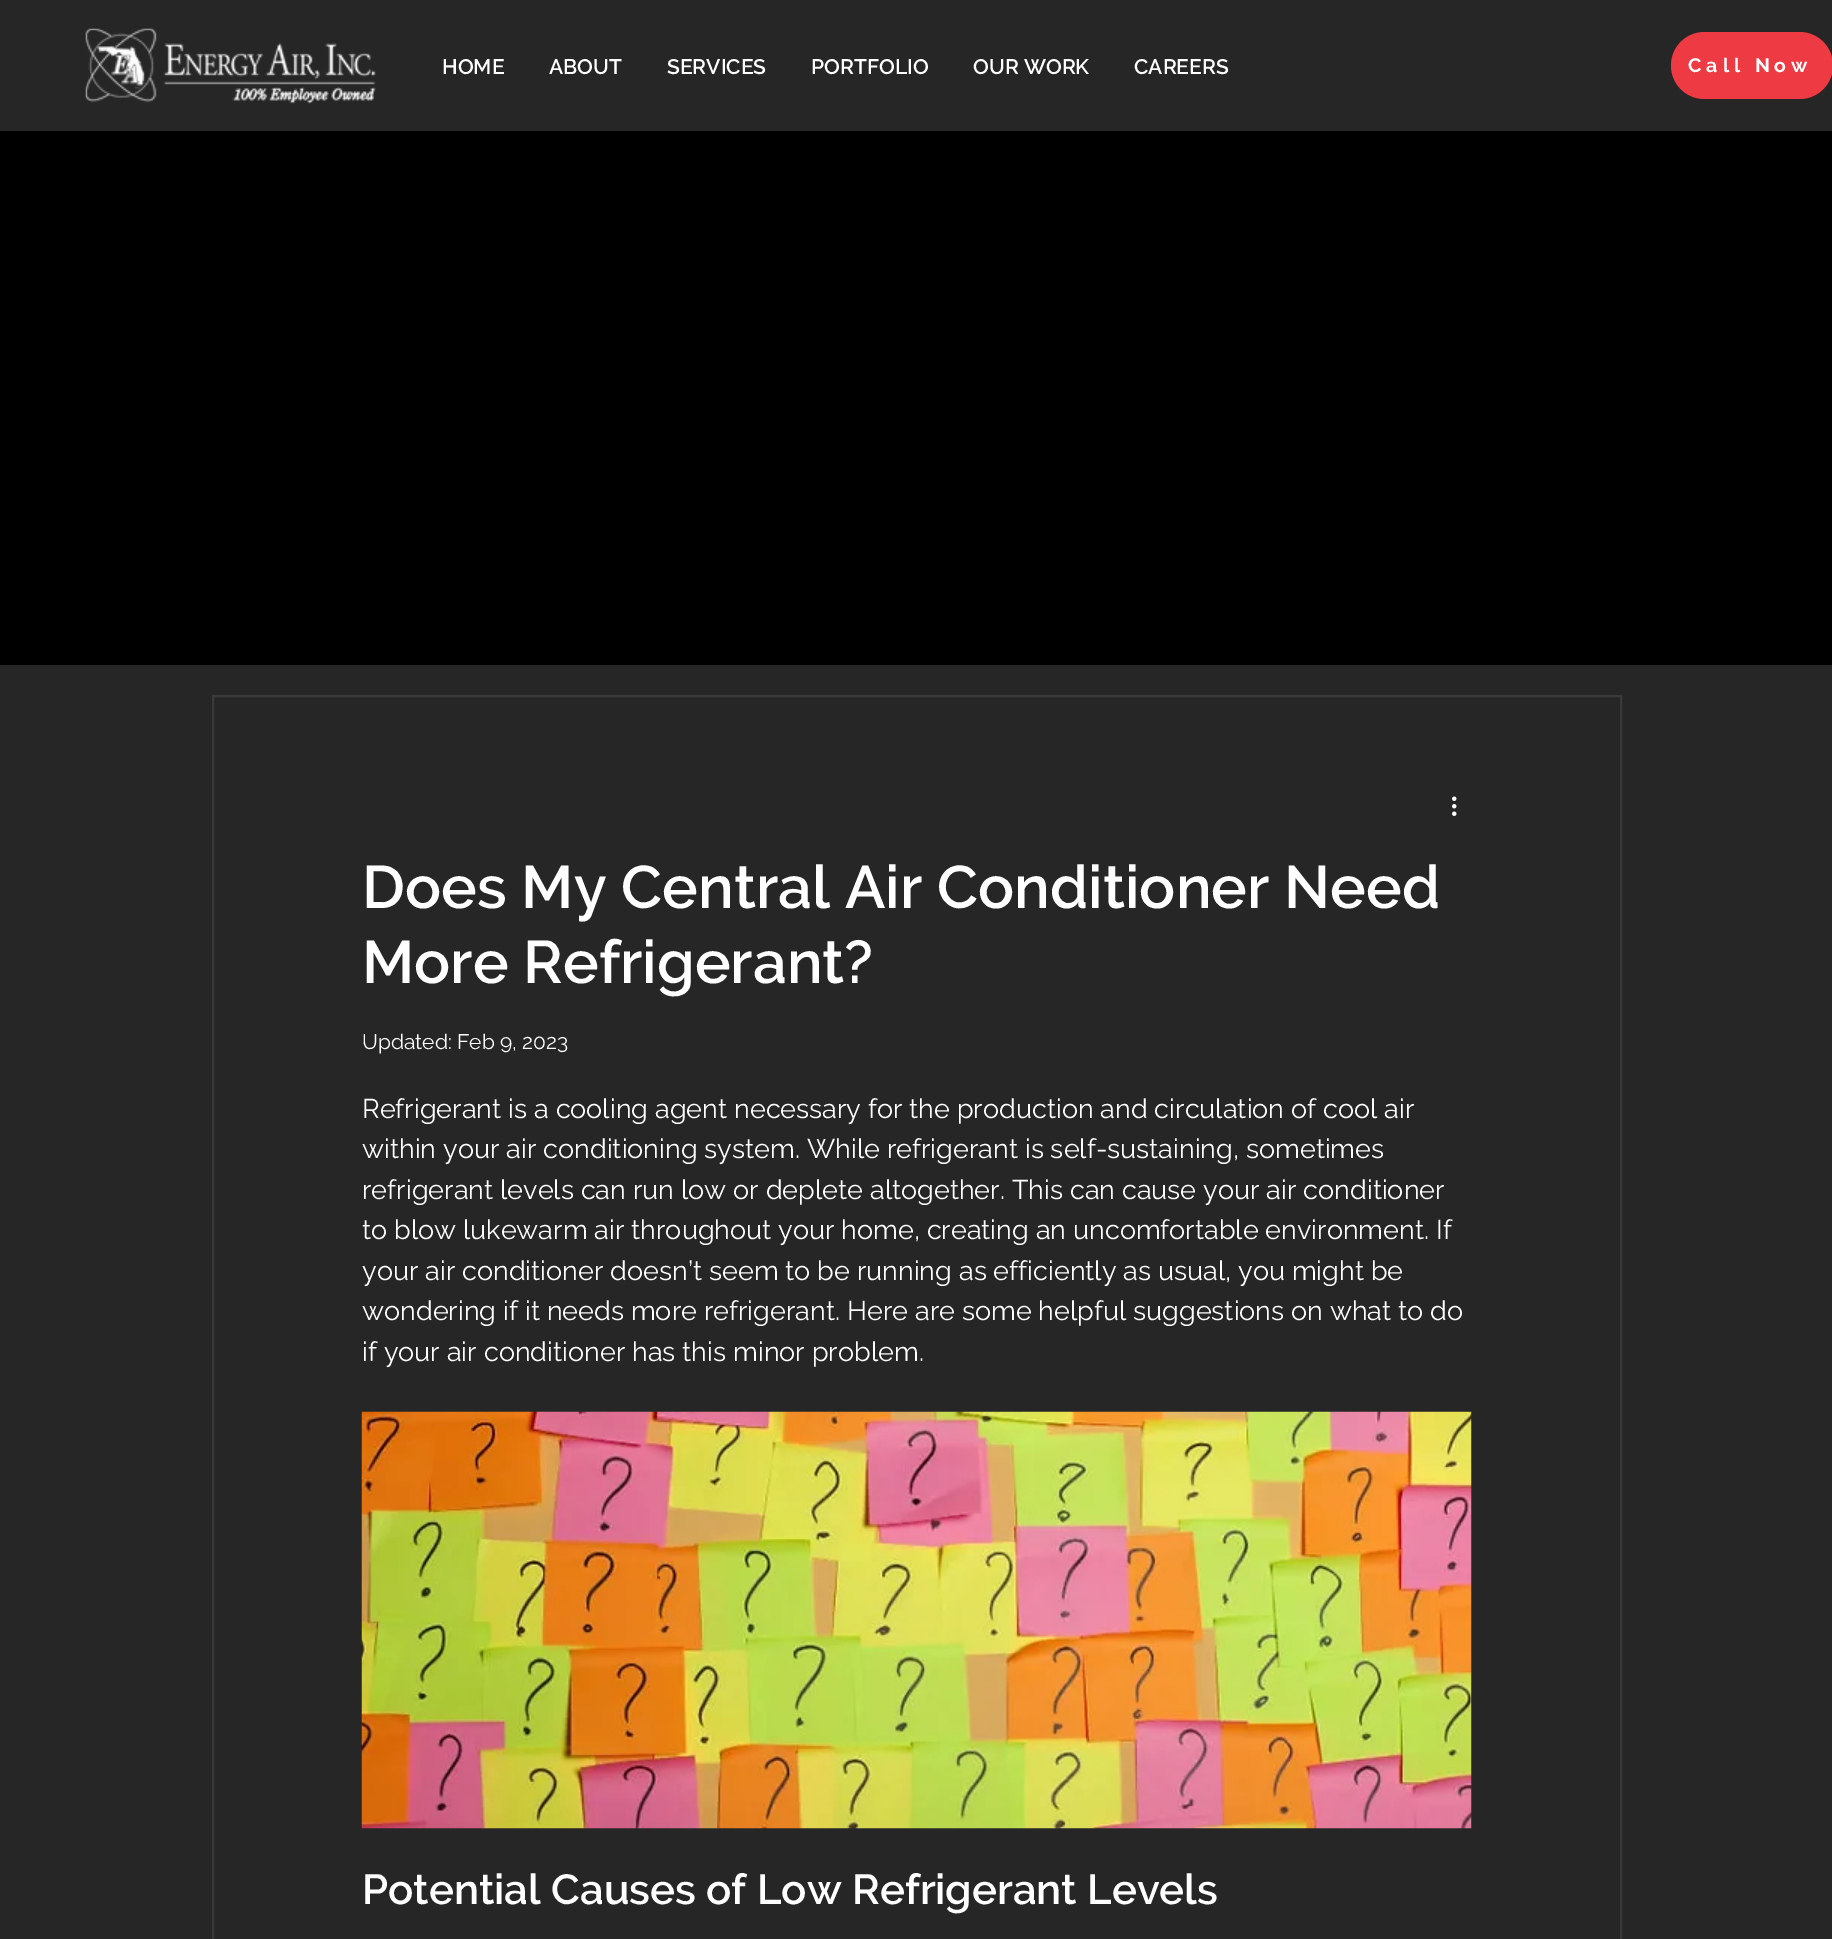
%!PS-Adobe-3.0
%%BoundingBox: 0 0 1832 1939
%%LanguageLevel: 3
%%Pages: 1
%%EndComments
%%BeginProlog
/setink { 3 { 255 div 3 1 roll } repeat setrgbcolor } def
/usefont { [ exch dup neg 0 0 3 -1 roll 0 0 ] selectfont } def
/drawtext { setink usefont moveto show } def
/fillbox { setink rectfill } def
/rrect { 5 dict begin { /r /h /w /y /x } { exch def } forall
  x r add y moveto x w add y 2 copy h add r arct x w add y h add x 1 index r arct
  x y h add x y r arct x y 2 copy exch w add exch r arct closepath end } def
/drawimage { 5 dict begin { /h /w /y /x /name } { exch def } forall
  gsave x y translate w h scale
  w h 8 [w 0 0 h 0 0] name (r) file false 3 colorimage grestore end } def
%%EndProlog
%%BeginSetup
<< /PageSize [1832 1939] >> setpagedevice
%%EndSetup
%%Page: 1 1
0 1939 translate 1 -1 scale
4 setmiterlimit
0 0 1832 1939 38 38 38 fillbox
(assets/img1.rgb) 85 28 291 76 drawimage
(HOME) 442 74 /Raleway-SemiBold 21 255 255 255 drawtext
(ABOUT) 549 74 /Raleway-SemiBold 21 255 255 255 drawtext
(SERVICES) 667 74 /Raleway-SemiBold 21 255 255 255 drawtext
(PORTFOLIO) 811 74 /Raleway-SemiBold 21 255 255 255 drawtext
(OUR WORK) 973 74 /Raleway-SemiBold 21 255 255 255 drawtext
(CAREERS) 1134 74 /Raleway-SemiBold 21 255 255 255 drawtext
238 58 67 setink
1671 32 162 67 33.5 rrect fill
/Raleway-Bold 19.5 usefont
255 255 255 setink
1688 72 moveto 5 0 (Call Now) ashow
0 131 1832 534 0 0 0 fillbox
58 58 58 setink
2 setlinewidth
213 696 1408 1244 rectstroke
(assets/img2.rgb) 1452 796 5 20 drawimage
(Does My Central Air Conditioner Need) 362 908 /Raleway-SemiBold 60 255 255 255 drawtext
(More Refrigerant?) 362 983 /Raleway-SemiBold 60 255 255 255 drawtext
(Updated: Feb 9, 2023) 362 1049 /Raleway-Regular 21 255 255 255 drawtext
(Refrigerant is a cooling agent necessary for the production and circulation of cool air) 362 1118 /Raleway-Regular 27 255 255 255 drawtext
(within your air conditioning system. While refrigerant is self-sustaining, sometimes) 362 1158 /Raleway-Regular 27 255 255 255 drawtext
(refrigerant levels can run low or deplete altogether. This can cause your air conditioner) 362 1199 /Raleway-Regular 27 255 255 255 drawtext
(to blow lukewarm air throughout your home, creating an uncomfortable environment. If) 362 1239 /Raleway-Regular 27 255 255 255 drawtext
(your air conditioner doesn’t seem to be running as efficiently as usual, you might be) 362 1280 /Raleway-Regular 27 255 255 255 drawtext
(wondering if it needs more refrigerant. Here are some helpful suggestions on what to do) 362 1320 /Raleway-Regular 27 255 255 255 drawtext
(if your air conditioner has this minor problem.) 362 1361 /Raleway-Regular 27 255 255 255 drawtext
(assets/img3.rgb) 361 1411 1111 418 drawimage
(Potential Causes of Low Refrigerant Levels) 362 1904 /Raleway-SemiBold 42 255 255 255 drawtext
showpage
%%EOF
